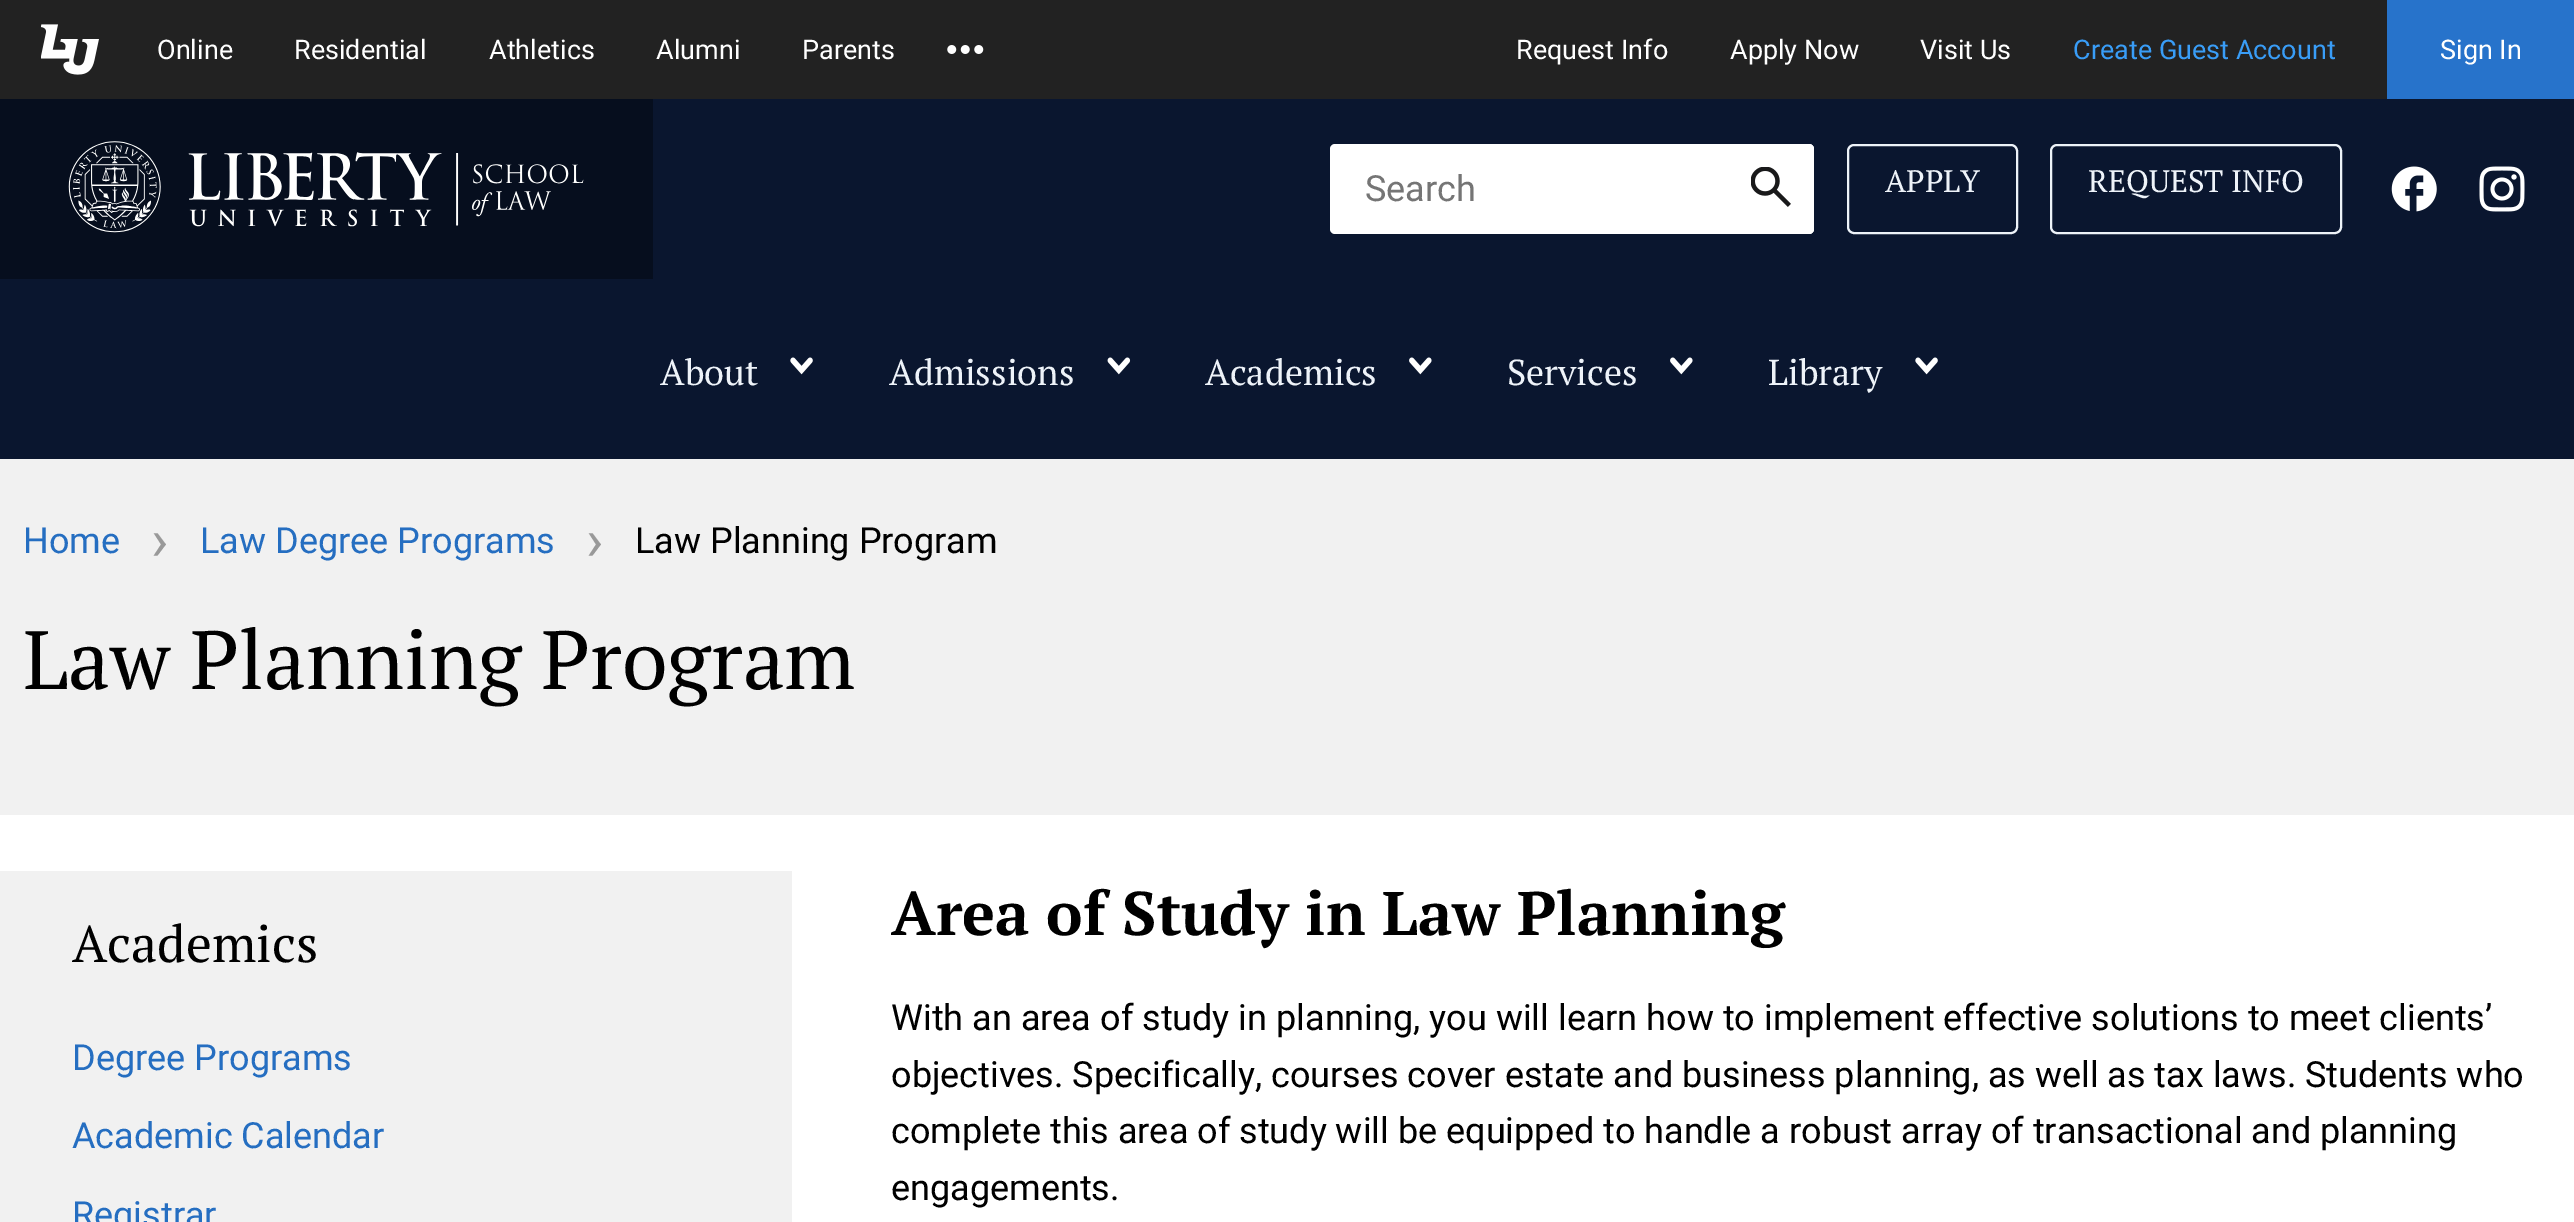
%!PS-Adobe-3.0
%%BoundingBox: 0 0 2574 1222
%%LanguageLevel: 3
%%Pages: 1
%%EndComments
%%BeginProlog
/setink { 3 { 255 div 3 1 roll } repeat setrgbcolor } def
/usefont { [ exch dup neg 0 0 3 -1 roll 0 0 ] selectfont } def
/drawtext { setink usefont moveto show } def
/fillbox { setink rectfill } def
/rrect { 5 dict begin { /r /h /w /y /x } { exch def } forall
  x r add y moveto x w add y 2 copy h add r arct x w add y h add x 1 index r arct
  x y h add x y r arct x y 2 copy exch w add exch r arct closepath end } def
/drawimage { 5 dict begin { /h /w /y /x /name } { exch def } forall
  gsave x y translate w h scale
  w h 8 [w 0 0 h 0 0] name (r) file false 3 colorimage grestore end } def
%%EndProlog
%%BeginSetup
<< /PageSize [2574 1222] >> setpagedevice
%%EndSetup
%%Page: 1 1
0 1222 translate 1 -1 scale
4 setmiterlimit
0 0 2574 1222 255 255 255 fillbox
0 0 2387 99 34 34 34 fillbox
(assets/img1.rgb) 41 24 58 51 drawimage
(Online) 157 59 /Roboto-Regular 27 255 255 255 drawtext
(Residential) 294 59 /Roboto-Regular 27 255 255 255 drawtext
(Athletics) 489 59 /Roboto-Regular 27 255 255 255 drawtext
(Alumni) 656 59 /Roboto-Regular 27 255 255 255 drawtext
(Parents) 802 59 /Roboto-Regular 27 255 255 255 drawtext
(assets/img2.rgb) 947 45 37 9 drawimage
(Request Info) 1516 59 /Roboto-Regular 27 255 255 255 drawtext
(Apply Now) 1730 59 /Roboto-Regular 27 255 255 255 drawtext
(Visit Us) 1920 59 /Roboto-Regular 27 255 255 255 drawtext
(Create Guest Account) 2073 59 /Roboto-Regular 27 57 157 247 drawtext
2387 0 187 99 39 115 203 fillbox
(Sign In) 2440 59 /Roboto-Regular 27 255 255 255 drawtext
653 99 1921 180 10 22 47 fillbox
0 99 653 180 6 14 30 fillbox
(assets/img3.rgb) 68 141 516 92 drawimage
255 255 255 setink
1330 144 484 90 5 rrect fill
(Search) 1365 201 /Roboto-Regular 36 117 117 117 drawtext
255 255 255 setink
1728 144 86 90 5 rrect fill
(assets/img4.rgb) 1751 167 40 40 drawimage
238 243 249 setink
2 setlinewidth
1848 145 169 88 6 rrect stroke
(APPLY) 1885 192 /PTSerif-Regular 31 238 243 249 drawtext
2051 145 290 88 6 rrect stroke
(REQUEST INFO) 2088 192 /PTSerif-Regular 31 238 243 249 drawtext
(assets/img5.rgb) 2391 166 46 46 drawimage
(assets/img6.rgb) 2479 166 46 46 drawimage
0 279 2574 180 10 22 47 fillbox
(About) 660 385 /PTSerif-Regular 36 238 243 249 drawtext
(assets/img7.rgb) 790 357 23 18 drawimage
(Admissions) 889 385 /PTSerif-Regular 36 238 243 249 drawtext
(assets/img8.rgb) 1107 357 24 18 drawimage
(Academics) 1205 385 /PTSerif-Regular 36 238 243 249 drawtext
(assets/img9.rgb) 1409 357 23 18 drawimage
(Services) 1507 385 /PTSerif-Regular 36 238 243 249 drawtext
(assets/img9.rgb) 1670 357 23 18 drawimage
(Library) 1768 385 /PTSerif-Regular 36 238 243 249 drawtext
(assets/img7.rgb) 1915 357 23 18 drawimage
0 459 2574 356 241 241 241 fillbox
(Home) 23 553 /Roboto-Regular 36 37 110 193 drawtext
(›) 151 560 /Roboto-Regular 58 153 153 153 drawtext
(Law Degree Programs) 200 553 /Roboto-Regular 36 37 110 193 drawtext
(›) 586 560 /Roboto-Regular 58 153 153 153 drawtext
(Law Planning Program) 635 553 /Roboto-Regular 36 0 0 0 drawtext
(Law Planning Program) 23 689 /PTSerif-Regular 82.5 0 0 0 drawtext
0 871 792 351 241 241 241 fillbox
(Academics) 72 962 /PTSerif-Regular 51.5 0 0 0 drawtext
(Degree Programs) 72 1070 /Roboto-Regular 36 37 110 193 drawtext
(Academic Calendar) 72 1148 /Roboto-Regular 36 37 110 193 drawtext
(Registrar) 72 1227 /Roboto-Regular 36 37 110 193 drawtext
(Area of Study in Law Planning) 891 935 /PTSerif-Bold 61.5 0 0 0 drawtext
(With an area of study in planning, you will learn how to implement effective solutions to meet clients’) 891 1030 /Roboto-Regular 36 0 0 0 drawtext
(objectives. Specifically, courses cover estate and business planning, as well as tax laws. Students who) 891 1087 /Roboto-Regular 36 0 0 0 drawtext
(complete this area of study will be equipped to handle a robust array of transactional and planning) 891 1143 /Roboto-Regular 36 0 0 0 drawtext
(engagements.) 891 1200 /Roboto-Regular 36 0 0 0 drawtext
showpage
%%EOF
